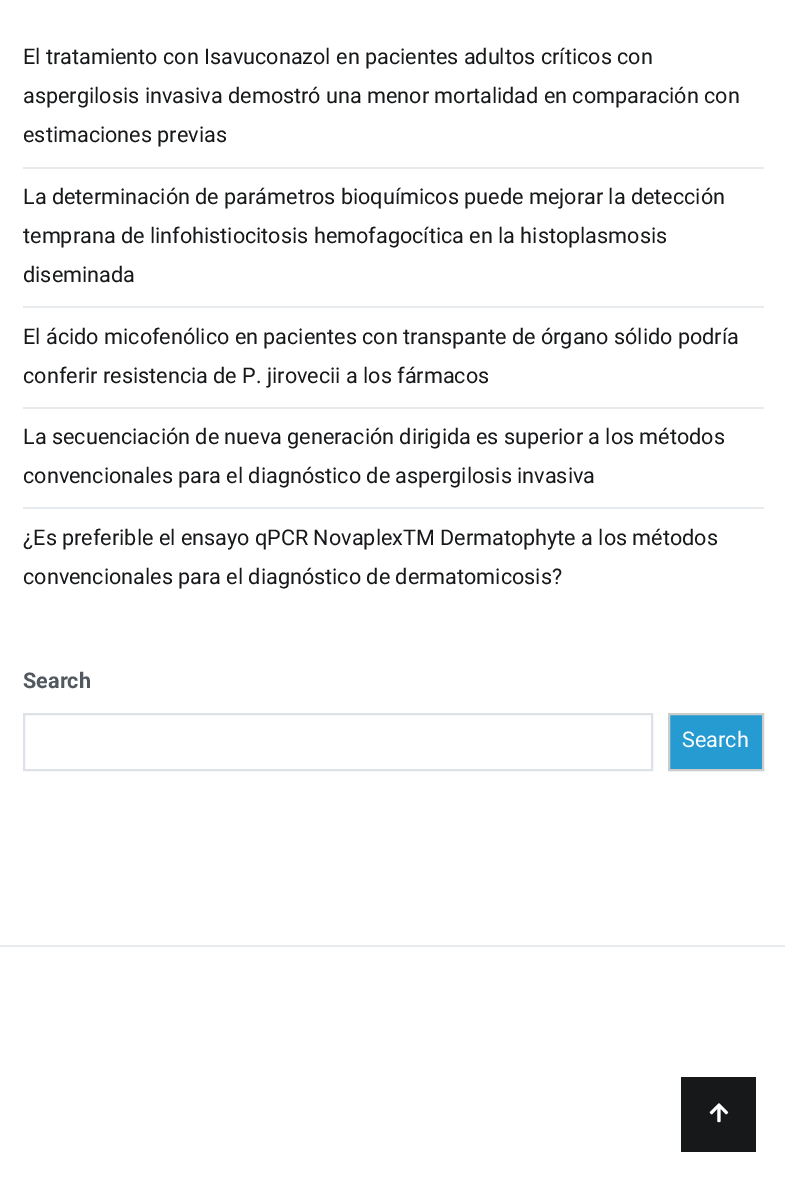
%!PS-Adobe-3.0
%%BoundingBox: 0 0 785 1196
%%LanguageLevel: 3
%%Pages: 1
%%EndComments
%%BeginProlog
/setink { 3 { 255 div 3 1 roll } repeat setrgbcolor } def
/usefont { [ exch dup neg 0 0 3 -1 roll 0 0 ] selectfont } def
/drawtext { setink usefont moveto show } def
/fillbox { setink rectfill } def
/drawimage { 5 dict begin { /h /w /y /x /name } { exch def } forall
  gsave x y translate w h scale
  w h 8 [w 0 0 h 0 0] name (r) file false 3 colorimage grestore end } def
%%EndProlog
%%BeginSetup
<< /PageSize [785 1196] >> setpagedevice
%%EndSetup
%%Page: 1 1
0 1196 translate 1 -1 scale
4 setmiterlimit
0 0 785 1196 255 255 255 fillbox
23 167 741 2 233 236 239 fillbox
(El tratamiento con Isavuconazol en pacientes adultos críticos con) 23 64 /Roboto-Regular 21.6 22 24 26 drawtext
(aspergilosis invasiva demostró una menor mortalidad en comparación con) 23 103 /Roboto-Regular 21.6 22 24 26 drawtext
(estimaciones previas) 23 142 /Roboto-Regular 21.6 22 24 26 drawtext
23 306 741 2 233 236 239 fillbox
(La determinación de parámetros bioquímicos puede mejorar la detección) 23 204 /Roboto-Regular 21.6 22 24 26 drawtext
(temprana de linfohistiocitosis hemofagocítica en la histoplasmosis) 23 243 /Roboto-Regular 21.6 22 24 26 drawtext
(diseminada) 23 282 /Roboto-Regular 21.6 22 24 26 drawtext
23 407 741 2 233 236 239 fillbox
(El ácido micofenólico en pacientes con transpante de órgano sólido podría) 23 344 /Roboto-Regular 21.6 22 24 26 drawtext
(conferir resistencia de P. jirovecii a los fármacos) 23 383 /Roboto-Regular 21.6 22 24 26 drawtext
23 507 741 2 233 236 239 fillbox
(La secuenciación de nueva generación dirigida es superior a los métodos) 23 444 /Roboto-Regular 21.6 22 24 26 drawtext
(convencionales para el diagnóstico de aspergilosis invasiva) 23 483 /Roboto-Regular 21.6 22 24 26 drawtext
(¿Es preferible el ensayo qPCR NovaplexTM Dermatophyte a los métodos) 23 545 /Roboto-Regular 21.6 22 24 26 drawtext
(convencionales para el diagnóstico de dermatomicosis?) 23 584 /Roboto-Regular 21.6 22 24 26 drawtext
(Search) 23 688 /Roboto-Bold 21.6 81 88 95 drawtext
222 226 230 setink
2 setlinewidth
24 714 628 56 rectstroke
38 155 209 setink
669 714 moveto 763 714 lineto 763 770 lineto 669 770 lineto closepath gsave fill grestore
204 204 204 setink
stroke
(Search) 682 747 /Roboto-Regular 21.6 255 255 255 drawtext
0 945 785 2 233 236 239 fillbox
681 1077 75 75 22 24 26 fillbox
(assets/img1.rgb) 709 1103 20 20 drawimage
showpage
%%EOF
